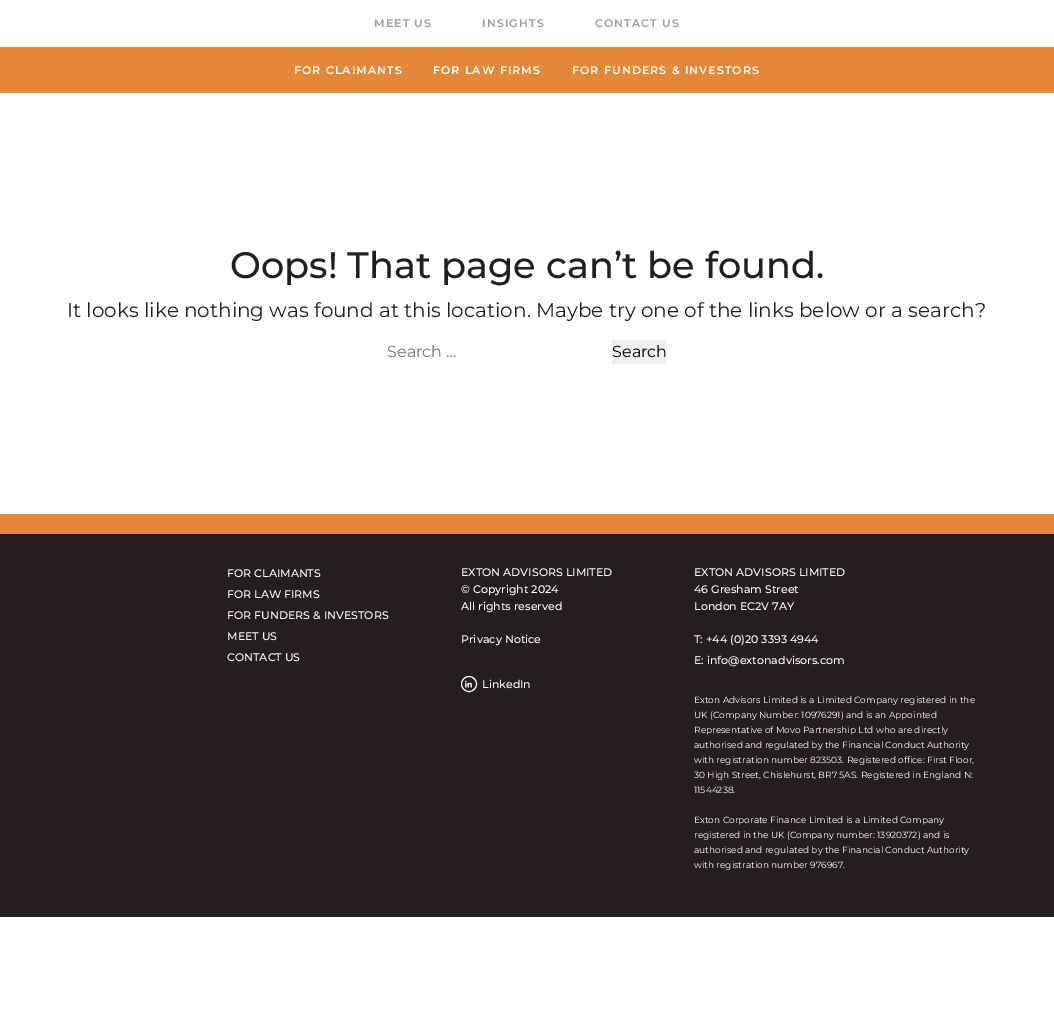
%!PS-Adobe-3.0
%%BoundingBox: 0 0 1054 1010
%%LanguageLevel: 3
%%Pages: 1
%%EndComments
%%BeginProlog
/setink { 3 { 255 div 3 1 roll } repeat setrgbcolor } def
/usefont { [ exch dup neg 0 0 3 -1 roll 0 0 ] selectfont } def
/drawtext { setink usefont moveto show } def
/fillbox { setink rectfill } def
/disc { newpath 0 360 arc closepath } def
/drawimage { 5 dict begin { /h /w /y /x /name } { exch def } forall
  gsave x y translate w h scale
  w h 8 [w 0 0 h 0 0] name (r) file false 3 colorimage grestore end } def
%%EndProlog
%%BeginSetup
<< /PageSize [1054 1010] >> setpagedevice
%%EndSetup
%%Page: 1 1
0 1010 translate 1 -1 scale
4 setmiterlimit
0 0 1054 1010 255 255 255 fillbox
/Montserrat-SemiBold 11 usefont
157 157 156 setink
374 27 moveto 1.1 0 (MEET US) ashow
482 27 moveto 1.1 0 (INSIGHTS) ashow
595 27 moveto 1.1 0 (CONTACT US) ashow
0 47 1054 46 226 136 56 fillbox
255 255 255 setink
294 74 moveto 1.1 0 (FOR CLAIMANTS) ashow
433 74 moveto 1.1 0 (FOR LAW FIRMS) ashow
572 74 moveto 1.1 0 (FOR FUNDERS & INVESTORS) ashow
(Oops! That page can’t be found.) 230 278 /Montserrat-Medium 36.75 35 31 32 drawtext
(It looks like nothing was found at this location. Maybe try one of the links below or a search?) 67 317 /Montserrat-Regular 20 35 31 32 drawtext
(Search …) 387 357 /Montserrat-Regular 16 117 117 117 drawtext
612 340 55 24 239 239 239 fillbox
(Search) 612 357 /Montserrat-Regular 16 0 0 0 drawtext
0 534 1054 383 35 31 32 fillbox
0 514 1054 20 226 136 56 fillbox
(FOR CLAIMANTS) 227 577 /Montserrat-Medium 11 255 255 255 drawtext
(FOR LAW FIRMS) 227 598 /Montserrat-Medium 11 255 255 255 drawtext
(FOR FUNDERS & INVESTORS) 227 619 /Montserrat-Medium 11 255 255 255 drawtext
(MEET US) 227 640 /Montserrat-Medium 11 255 255 255 drawtext
(CONTACT US) 227 661 /Montserrat-Medium 11 255 255 255 drawtext
(EXTON ADVISORS LIMITED) 461 576 /Montserrat-Medium 11 255 255 255 drawtext
(© Copyright 2024) 461 593 /Montserrat-Medium 11 255 255 255 drawtext
(All rights reserved) 461 610 /Montserrat-Medium 11 255 255 255 drawtext
(Privacy Notice) 461 643 /Montserrat-Medium 11 255 255 255 drawtext
469 684 7.5 disc stroke
(assets/img1.rgb) 465 680 7 8 drawimage
(LinkedIn) 482 688 /Montserrat-Medium 11 255 255 255 drawtext
(EXTON ADVISORS LIMITED) 694 576 /Montserrat-Medium 11 255 255 255 drawtext
(46 Gresham Street) 694 593 /Montserrat-Medium 11 255 255 255 drawtext
(London EC2V 7AY) 694 610 /Montserrat-Medium 11 255 255 255 drawtext
(T: +44 \(0\)20 3393 4944) 694 643 /Montserrat-Medium 11 255 255 255 drawtext
(E: info@extonadvisors.com) 694 664 /Montserrat-Medium 11 255 255 255 drawtext
(Exton Advisors Limited is a Limited Company registered in the) 694 703 /Montserrat-Regular 9 255 255 255 drawtext
(UK \(Company Number: 10976291\) and is an Appointed) 694 718 /Montserrat-Regular 9 255 255 255 drawtext
(Representative of Movo Partnership Ltd who are directly) 694 733 /Montserrat-Regular 9 255 255 255 drawtext
(authorised and regulated by the Financial Conduct Authority) 694 748 /Montserrat-Regular 9 255 255 255 drawtext
(with registration number 823503. Registered office: First Floor,) 694 763 /Montserrat-Regular 9 255 255 255 drawtext
(30 High Street, Chislehurst, BR7 5AS. Registered in England N:) 694 778 /Montserrat-Regular 9 255 255 255 drawtext
(11544238.) 694 793 /Montserrat-Regular 9 255 255 255 drawtext
(Exton Corporate Finance Limited is a Limited Company) 694 823 /Montserrat-Regular 9 255 255 255 drawtext
(registered in the UK \(Company number: 13920372\) and is) 694 838 /Montserrat-Regular 9 255 255 255 drawtext
(authorised and regulated by the Financial Conduct Authority) 694 853 /Montserrat-Regular 9 255 255 255 drawtext
(with registration number 976967.) 694 868 /Montserrat-Regular 9 255 255 255 drawtext
showpage
%%EOF
